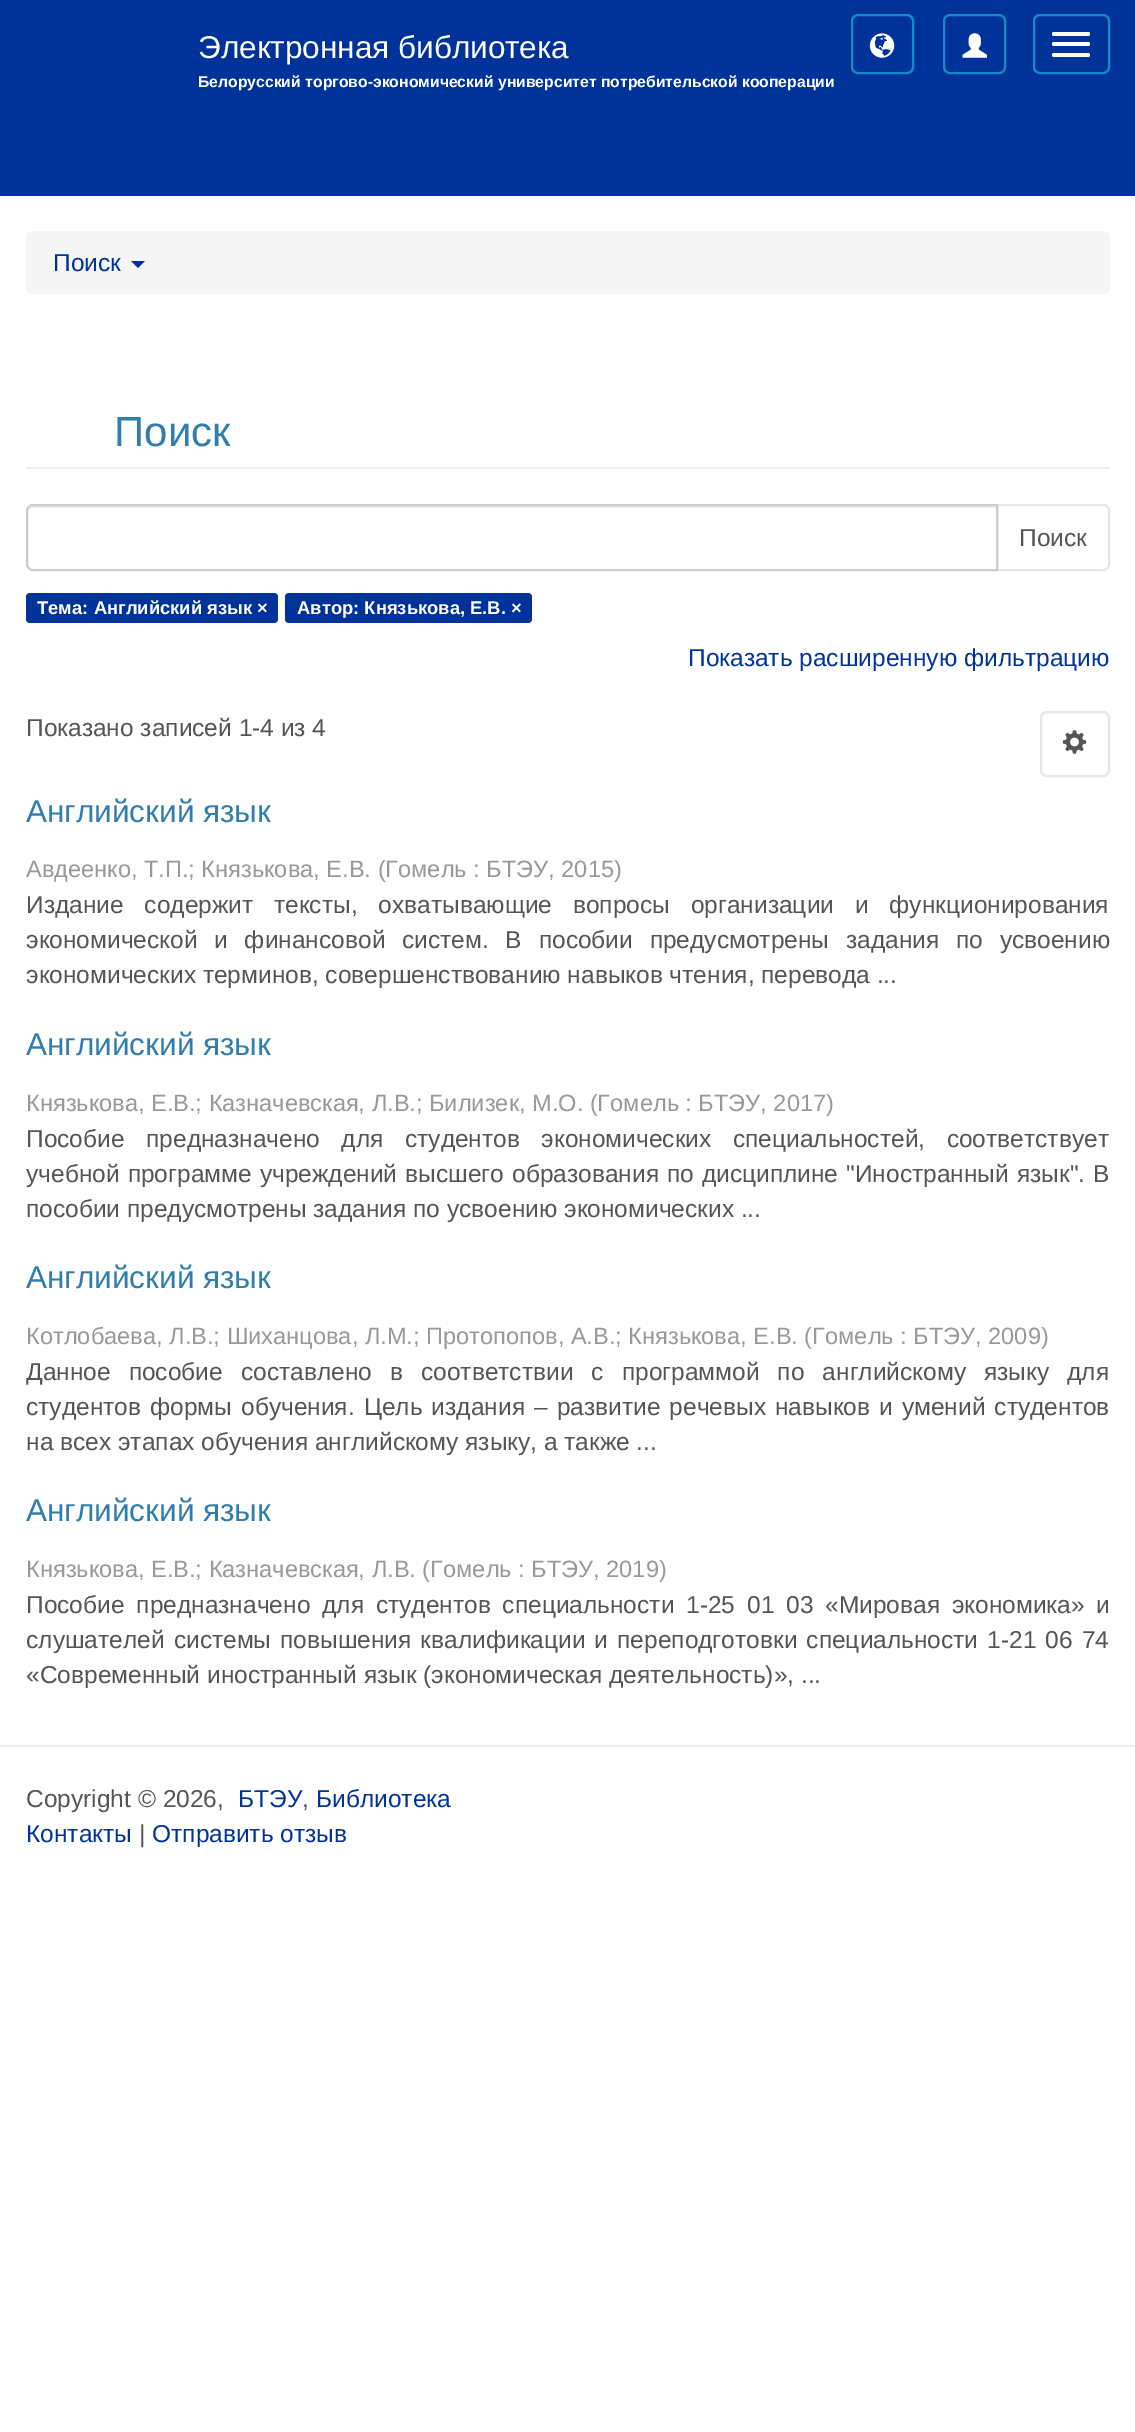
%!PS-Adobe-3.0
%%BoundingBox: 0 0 1135 2432
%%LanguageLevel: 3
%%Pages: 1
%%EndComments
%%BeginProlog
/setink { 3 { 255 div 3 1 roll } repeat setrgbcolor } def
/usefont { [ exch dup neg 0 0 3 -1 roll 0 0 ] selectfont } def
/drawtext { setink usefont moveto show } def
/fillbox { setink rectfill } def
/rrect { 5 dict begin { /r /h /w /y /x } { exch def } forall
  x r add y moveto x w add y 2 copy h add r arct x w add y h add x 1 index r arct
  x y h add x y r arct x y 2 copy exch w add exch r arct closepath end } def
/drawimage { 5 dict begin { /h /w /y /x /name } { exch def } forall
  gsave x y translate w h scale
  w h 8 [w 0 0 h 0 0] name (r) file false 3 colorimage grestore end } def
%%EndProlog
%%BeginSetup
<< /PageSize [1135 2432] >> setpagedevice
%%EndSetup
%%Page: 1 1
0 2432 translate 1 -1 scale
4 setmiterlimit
0 0 1135 2432 255 255 255 fillbox
0 0 1135 196 0 51 153 fillbox
(Электронная библиотека) 198 58 /LiberationSans-Regular 31.5 255 255 255 drawtext
(Белорусский торгово-экономический университет потребительской кооперации) 198 87 /LiberationSans-Bold 15.75 255 255 255 drawtext
23 138 204 setink
2 setlinewidth
852 15 61 58 6 rrect stroke
(assets/img1.rgb) 869 33 26 25 drawimage
944 15 61 58 6 rrect stroke
(assets/img2.rgb) 962 33 25 25 drawimage
1034 15 75 58 6 rrect stroke
255 255 255 setink
1052 32 38 4 2 rrect fill
1052 42 38 4 2 rrect fill
1052 53 38 4 2 rrect fill
245 245 245 setink
26 231 1084 63 7 rrect fill
(Поиск) 53 271 /LiberationSans-Regular 24.5 0 51 153 drawtext
131 261 moveto 145 261 lineto 138 268 lineto closepath fill
26 467 1084 2 238 238 238 fillbox
(Поиск) 114 446 /LiberationSans-Regular 42 49 126 172 drawtext
230 230 230 setink
997 505 moveto 1103 505 lineto 1106.5 505 1109 507.5 1109 511 curveto 1109 564 lineto 1109 567.5 1106.5 570 1103 570 curveto 997 570 lineto closepath stroke
255 255 255 setink
33 504 moveto 998 504 lineto 998 571 lineto 33 571 lineto 29 571 26 568 26 564 curveto 26 511 lineto 26 507 29 504 33 504 curveto closepath fill
236 236 236 setink
33 508 moveto 996 508 lineto 996 506 lineto 33 506 lineto 29 506 28 510 28 513 curveto 28 510 30 508 33 508 curveto closepath fill
204 204 204 setink
33 505 moveto 997 505 lineto 997 570 lineto 33 570 lineto 29.5 570 27 567.5 27 564 curveto 27 511 lineto 27 507.5 29.5 505 33 505 curveto closepath stroke
(Поиск) 1019 546 /LiberationSans-Regular 24.5 85 85 85 drawtext
0 51 153 setink
26 593 252 30 4 rrect fill
(Тема: Английский язык ×) 37 614 /LiberationSans-Bold 18.4 255 255 255 drawtext
0 51 153 setink
285 593 247 30 4 rrect fill
(Автор: Князькова, Е.В. ×) 297 614 /LiberationSans-Bold 18.4 255 255 255 drawtext
(Показать расширенную фильтрацию) 688 666 /LiberationSans-Regular 24.5 0 51 153 drawtext
(Показано записей 1-4 из 4) 26 736 /LiberationSans-Regular 24.5 85 85 85 drawtext
230 230 230 setink
1041 712 68 64 6 rrect stroke
(assets/img3.rgb) 1062 730 25 24 drawimage
(Английский язык) 26 822 /LiberationSans-Regular 31.5 49 126 172 drawtext
(Авдеенко, Т.П.; Князькова, Е.В. \(Гомель : БТЭУ, 2015\)) 26 877 /LiberationSans-Regular 23.6 153 153 153 drawtext
/LiberationSans-Regular 24.5 usefont
85 85 85 setink
26 913 moveto 14 0 32 (Издание содержит тексты, охватывающие вопросы организации и функционирования) widthshow
26 948 moveto 10 0 32 (экономической и финансовой систем. В пособии предусмотрены задания по усвоению) widthshow
(экономических терминов, совершенствованию навыков чтения, перевода ...) 26 983 /LiberationSans-Regular 24.5 85 85 85 drawtext
(Английский язык) 26 1055 /LiberationSans-Regular 31.5 49 126 172 drawtext
(Князькова, Е.В.; Казначевская, Л.В.; Билизек, М.О. \(Гомель : БТЭУ, 2017\)) 26 1111 /LiberationSans-Regular 23.6 153 153 153 drawtext
/LiberationSans-Regular 24.5 usefont
85 85 85 setink
26 1147 moveto 14.75 0 32 (Пособие предназначено для студентов экономических специальностей, соответствует) widthshow
26 1182 moveto 1.25 0 32 (учебной программе учреждений высшего образования по дисциплине "Иностранный язык". В) widthshow
(пособии предусмотрены задания по усвоению экономических ...) 26 1217 /LiberationSans-Regular 24.5 85 85 85 drawtext
(Английский язык) 26 1288 /LiberationSans-Regular 31.5 49 126 172 drawtext
(Котлобаева, Л.В.; Шиханцова, Л.М.; Протопопов, А.В.; Князькова, Е.В. \(Гомель : БТЭУ, 2009\)) 26 1344 /LiberationSans-Regular 23.6 153 153 153 drawtext
/LiberationSans-Regular 24.5 usefont
85 85 85 setink
26 1380 moveto 11.25 0 32 (Данное пособие составлено в соответствии с программой по английскому языку для) widthshow
26 1415 moveto 2.25 0 32 (студентов формы обучения. Цель издания – развитие речевых навыков и умений студентов) widthshow
(на всех этапах обучения английскому языку, а также ...) 26 1450 /LiberationSans-Regular 24.5 85 85 85 drawtext
(Английский язык) 26 1521 /LiberationSans-Regular 31.5 49 126 172 drawtext
(Князькова, Е.В.; Казначевская, Л.В. \(Гомель : БТЭУ, 2019\)) 26 1577 /LiberationSans-Regular 23.6 153 153 153 drawtext
/LiberationSans-Regular 24.5 usefont
85 85 85 setink
26 1613 moveto 5 0 32 (Пособие предназначено для студентов специальности 1-25 01 03 «Мировая экономика» и) widthshow
26 1648 moveto 2.25 0 32 (слушателей системы повышения квалификации и переподготовки специальности 1-21 06 74) widthshow
(«Современный иностранный язык \(экономическая деятельность\)», ...) 26 1683 /LiberationSans-Regular 24.5 85 85 85 drawtext
0 1745 1135 2 238 238 238 fillbox
(Copyright © 2026,) 26 1807 /LiberationSans-Regular 24.5 85 85 85 drawtext
(БТЭУ) 238 1807 /LiberationSans-Regular 24.5 0 51 153 drawtext
(,) 302 1807 /LiberationSans-Regular 24.5 85 85 85 drawtext
(Библиотека) 316 1807 /LiberationSans-Regular 24.5 0 51 153 drawtext
(Контакты) 26 1842 /LiberationSans-Regular 24.5 0 51 153 drawtext
(|) 139 1842 /LiberationSans-Regular 24.5 85 85 85 drawtext
(Отправить отзыв) 152 1842 /LiberationSans-Regular 24.5 0 51 153 drawtext
showpage
%%EOF
